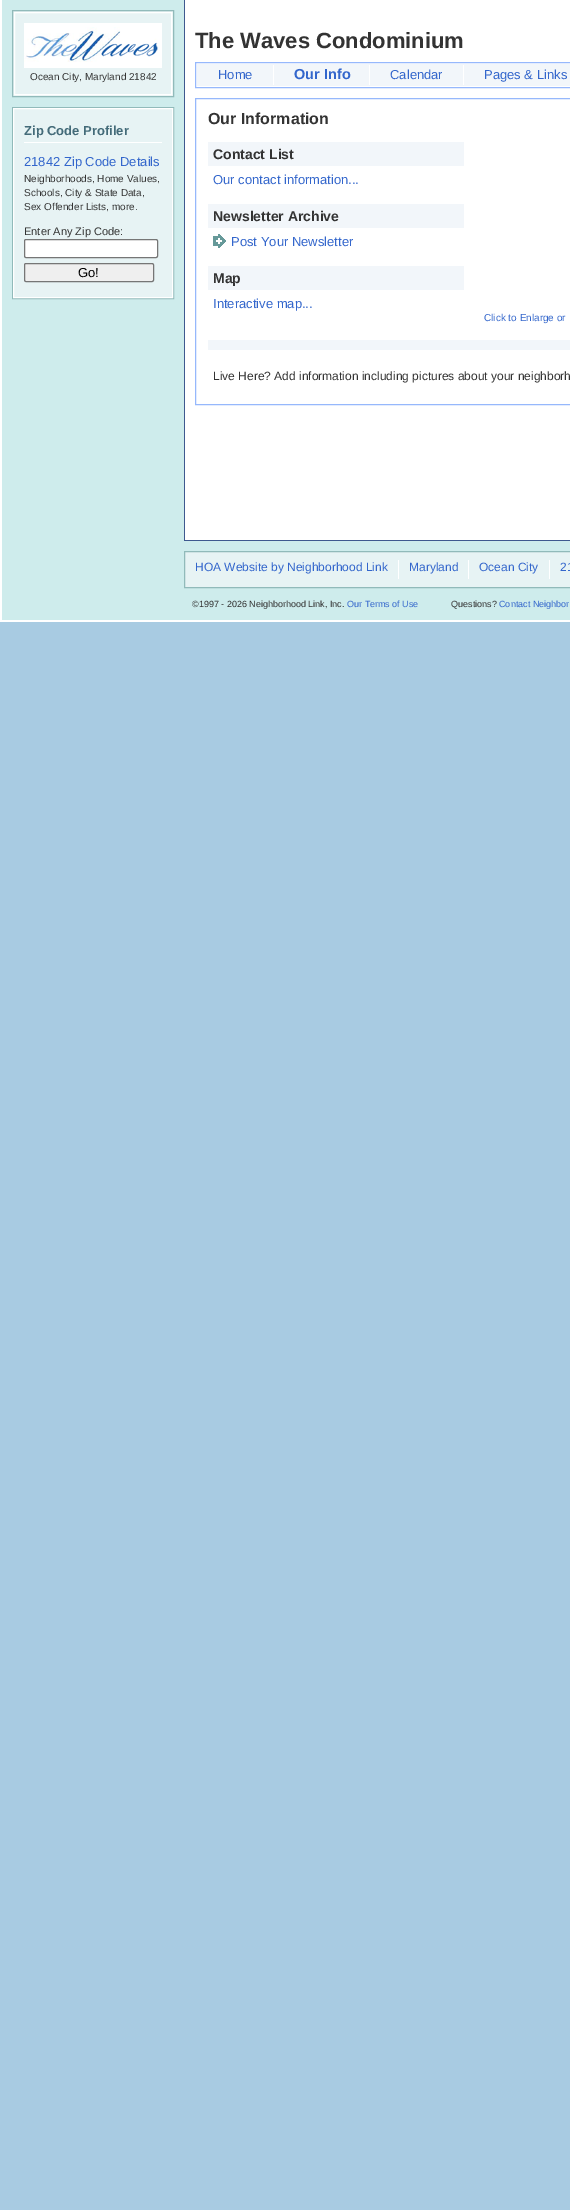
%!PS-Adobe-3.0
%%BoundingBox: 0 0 570 2210
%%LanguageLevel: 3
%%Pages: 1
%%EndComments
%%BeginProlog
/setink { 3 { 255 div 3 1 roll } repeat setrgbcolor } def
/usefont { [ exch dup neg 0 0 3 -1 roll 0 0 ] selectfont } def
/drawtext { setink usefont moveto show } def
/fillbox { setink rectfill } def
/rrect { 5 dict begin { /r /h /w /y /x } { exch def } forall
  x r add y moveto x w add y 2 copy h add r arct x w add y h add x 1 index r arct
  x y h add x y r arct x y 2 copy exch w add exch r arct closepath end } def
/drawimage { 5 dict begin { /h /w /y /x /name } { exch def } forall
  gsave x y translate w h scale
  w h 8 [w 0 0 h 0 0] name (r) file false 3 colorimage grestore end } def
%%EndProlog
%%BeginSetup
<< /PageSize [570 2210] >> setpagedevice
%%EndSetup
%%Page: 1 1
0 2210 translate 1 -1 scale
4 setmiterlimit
0 0 570 2210 168 203 226 fillbox
2 0 568 620 206 236 236 fillbox
0 620 570 2 255 255 255 fillbox
0 0 2 622 255 255 255 fillbox
185 0 385 540 255 255 255 fillbox
184 0 1 20 62 89 143 fillbox
231 243 244 setink
12.5 10.5 moveto 173.5 10.5 lineto 173.5 96.5 lineto 12.5 96.5 lineto closepath gsave fill grestore
145 186 186 setink
stroke
255 255 255 setink
14.5 12.5 157 82 rectstroke
(assets/img1.rgb) 24 23 138 45 drawimage
(Ocean City, Maryland 21842) 30 80 /LiberationSans-Regular 10 51 51 51 drawtext
14 109 158 188 231 243 244 fillbox
145 186 186 setink
12.5 107.5 161 191 rectstroke
255 255 255 setink
13.5 108.5 159 189 rectstroke
24 142 138 1 255 255 255 fillbox
(Zip Code Profiler) 24 135 /LiberationSans-Bold 13 68 107 121 drawtext
(21842 Zip Code Details) 24 166 /LiberationSans-Regular 13 51 102 204 drawtext
(Neighborhoods, Home Values,) 24 182 /LiberationSans-Regular 10 51 51 51 drawtext
(Schools, City & State Data,) 24 196 /LiberationSans-Regular 10 51 51 51 drawtext
(Sex Offender Lists, more.) 24 210 /LiberationSans-Regular 10 51 51 51 drawtext
(Enter Any Zip Code:) 24 235 /LiberationSans-Regular 11 51 51 51 drawtext
255 255 255 setink
24.5 239.5 133 18 1.5 rrect gsave fill grestore
118 118 118 setink
stroke
239 239 239 setink
24.5 263.5 129 18 1.5 rrect gsave fill grestore
118 118 118 setink
stroke
(Go!) 78 277 /LiberationSans-Regular 13 0 0 0 drawtext
184 540 386 1 62 89 143 fillbox
184 20 1 521 62 89 143 fillbox
(The Waves Condominium) 195 48 /LiberationSans-Bold 22 51 51 51 drawtext
150 184 252 setink
195.5 62.5 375 25 rectstroke
197 64 373 22 242 246 250 fillbox
273 65 1 20 255 255 255 fillbox
(Home) 218 79 /LiberationSans-Regular 13 51 102 204 drawtext
369 65 1 20 255 255 255 fillbox
(Our Info) 294 79 /LiberationSans-Bold 14.5 51 102 204 drawtext
463 65 1 20 255 255 255 fillbox
(Calendar) 390 79 /LiberationSans-Regular 13 51 102 204 drawtext
(Pages & Links) 484 79 /LiberationSans-Regular 13 51 102 204 drawtext
150 184 252 setink
195.5 98.5 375 306 rectstroke
(Our Information) 208 124 /LiberationSans-Bold 16 51 51 51 drawtext
208 142 256 24 242 246 250 fillbox
(Contact List) 213 159 /LiberationSans-Bold 14 51 51 51 drawtext
(Our contact information...) 213 184 /LiberationSans-Regular 13 51 102 204 drawtext
208 204 256 24 242 246 250 fillbox
(Newsletter Archive) 213 221 /LiberationSans-Bold 14 51 51 51 drawtext
(assets/img2.rgb) 213 234 13 14 drawimage
(Post Your Newsletter) 231 246 /LiberationSans-Regular 13 51 102 204 drawtext
208 266 256 24 242 246 250 fillbox
(Map) 213 283 /LiberationSans-Bold 14 51 51 51 drawtext
(Interactive map...) 213 308 /LiberationSans-Regular 13 51 102 204 drawtext
(Click to Enlarge or) 484 321 /LiberationSans-Regular 10 51 102 204 drawtext
208 340 362 10 242 246 250 fillbox
(Live Here? Add information including pictures about your neighborh) 213 380 /LiberationSans-Regular 12 51 51 51 drawtext
231 243 244 setink
184.5 551.5 moveto 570.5 551.5 lineto 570.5 587.5 lineto 184.5 587.5 lineto closepath gsave fill grestore
145 186 186 setink
stroke
398 560 1 19 255 255 255 fillbox
(HOA Website by Neighborhood Link) 195 571 /LiberationSans-Regular 12 51 102 204 drawtext
468 560 1 19 255 255 255 fillbox
(Maryland) 409 571 /LiberationSans-Regular 12 51 102 204 drawtext
549 560 1 19 255 255 255 fillbox
(Ocean City) 479 571 /LiberationSans-Regular 12 51 102 204 drawtext
(21) 560 571 /LiberationSans-Regular 12 51 102 204 drawtext
(©1997 - 2026 Neighborhood Link, Inc.) 192 607 /LiberationSans-Regular 9 51 51 51 drawtext
(Our Terms of Use) 347 607 /LiberationSans-Regular 9 51 102 204 drawtext
(Questions?) 451 607 /LiberationSans-Regular 9 51 51 51 drawtext
(Contact Neighbor) 499 607 /LiberationSans-Regular 9 51 102 204 drawtext
showpage
%%EOF
